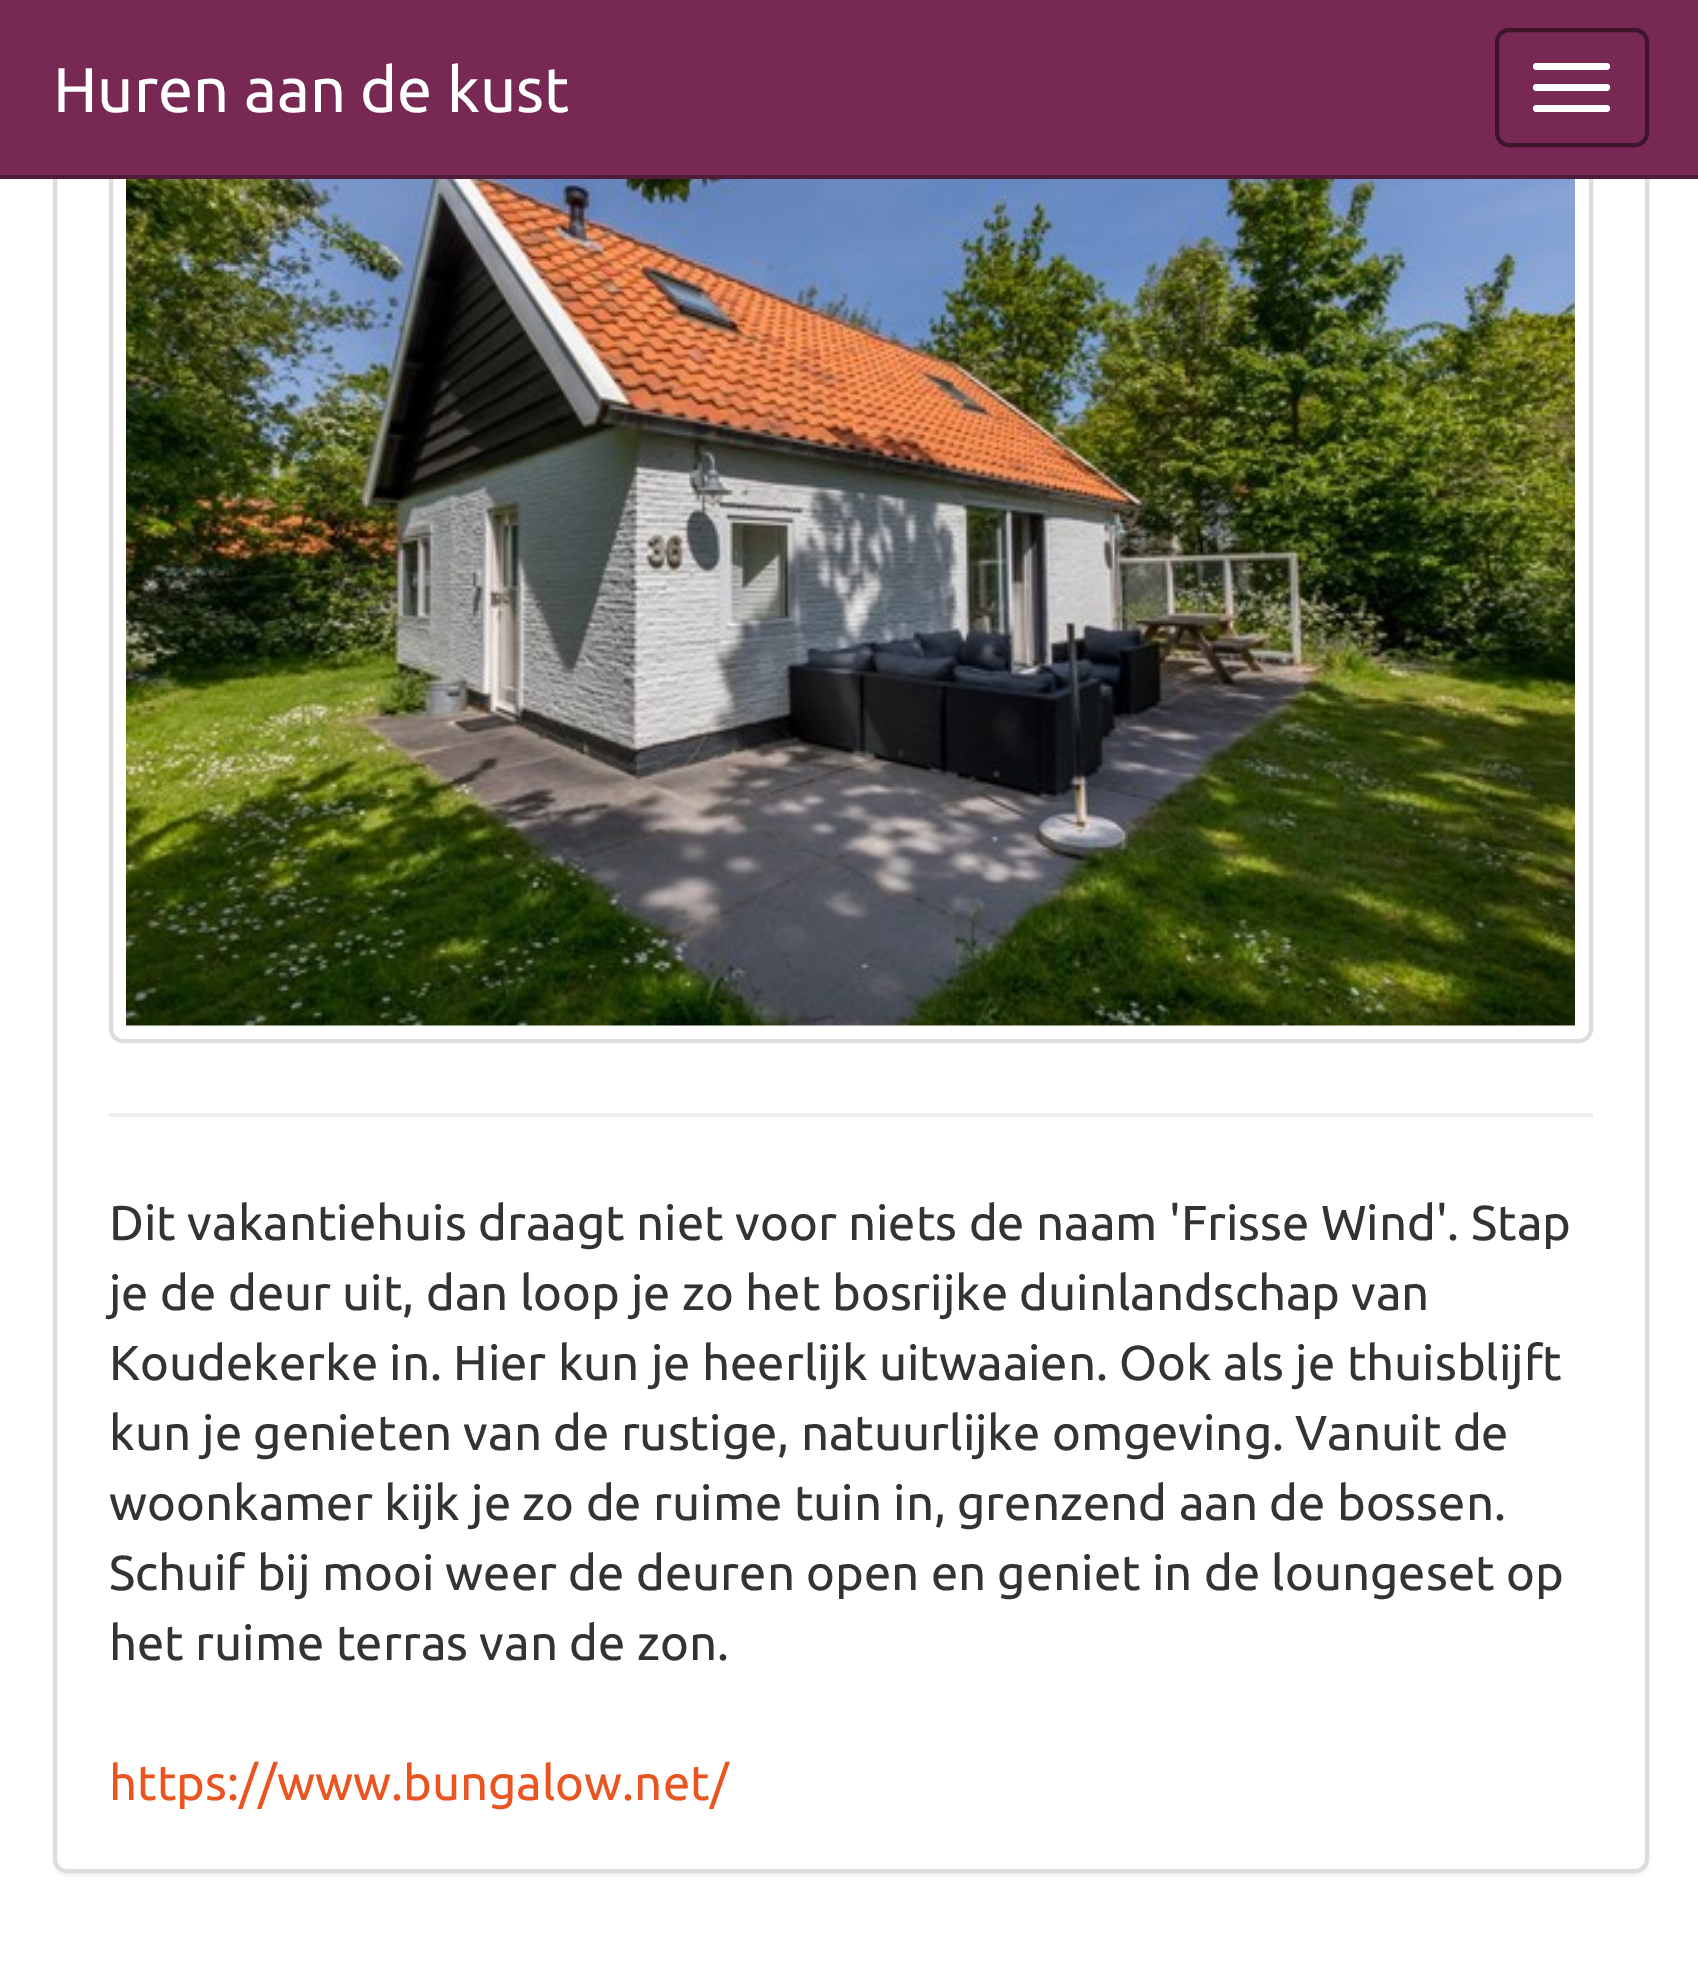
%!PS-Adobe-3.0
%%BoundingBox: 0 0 1698 1980
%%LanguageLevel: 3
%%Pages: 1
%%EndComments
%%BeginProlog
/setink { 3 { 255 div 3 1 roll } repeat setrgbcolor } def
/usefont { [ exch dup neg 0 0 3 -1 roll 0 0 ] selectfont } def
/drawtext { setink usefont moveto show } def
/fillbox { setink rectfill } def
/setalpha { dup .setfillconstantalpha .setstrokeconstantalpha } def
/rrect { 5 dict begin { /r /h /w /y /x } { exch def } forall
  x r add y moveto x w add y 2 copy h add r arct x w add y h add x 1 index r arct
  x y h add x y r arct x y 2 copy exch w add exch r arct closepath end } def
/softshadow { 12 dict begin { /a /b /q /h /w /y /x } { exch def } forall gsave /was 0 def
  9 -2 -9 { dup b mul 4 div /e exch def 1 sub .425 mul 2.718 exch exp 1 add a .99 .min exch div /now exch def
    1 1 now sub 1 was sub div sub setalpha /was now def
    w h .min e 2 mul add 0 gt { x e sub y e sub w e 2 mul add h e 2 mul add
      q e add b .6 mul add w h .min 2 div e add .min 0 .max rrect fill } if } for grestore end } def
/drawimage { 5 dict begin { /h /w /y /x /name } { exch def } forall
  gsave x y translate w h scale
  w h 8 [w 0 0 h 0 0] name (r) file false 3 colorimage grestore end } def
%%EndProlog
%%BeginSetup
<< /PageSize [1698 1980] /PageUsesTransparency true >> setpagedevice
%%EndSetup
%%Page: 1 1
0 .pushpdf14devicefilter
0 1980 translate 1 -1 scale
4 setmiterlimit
0 0 1698 1980 255 255 255 fillbox
0 0 0 setink
53 -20 1596 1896 14 2 0.05 softshadow
255 255 255 setink
55 -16 1592 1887 12 rrect gsave fill grestore
221 221 221 setink
4 setlinewidth
stroke
111 37 1480 1004 12 rrect stroke
0 0 1698 175 119 41 83 fillbox
0 175 1698 4 81 28 57 fillbox
(Huren aan de kust) 53 112 /Ubuntu-Regular 63 255 255 255 drawtext
62 21 43 setink
1497 30 150 115 12 rrect stroke
255 255 255 setink
1533 63 77 7 3.5 rrect fill
1533 84 77 7 3.5 rrect fill
1533 105 77 7 3.5 rrect fill
(assets/img1.rgb) 126 179 1449 847 drawimage
109 1113 1484 4 238 238 238 fillbox
(Dit vakantiehuis draagt niet voor niets de naam 'Frisse Wind'. Stap) 109 1240 /Ubuntu-Regular 49 51 51 51 drawtext
(je de deur uit, dan loop je zo het bosrijke duinlandschap van) 109 1310 /Ubuntu-Regular 49 51 51 51 drawtext
(Koudekerke in. Hier kun je heerlijk uitwaaien. Ook als je thuisblijft) 109 1380 /Ubuntu-Regular 49 51 51 51 drawtext
(kun je genieten van de rustige, natuurlijke omgeving. Vanuit de) 109 1450 /Ubuntu-Regular 49 51 51 51 drawtext
(woonkamer kijk je zo de ruime tuin in, grenzend aan de bossen.) 109 1520 /Ubuntu-Regular 49 51 51 51 drawtext
(Schuif bij mooi weer de deuren open en geniet in de loungeset op) 109 1590 /Ubuntu-Regular 49 51 51 51 drawtext
(het ruime terras van de zon.) 109 1660 /Ubuntu-Regular 49 51 51 51 drawtext
(https://www.bungalow.net/) 109 1800 /Ubuntu-Regular 49 233 84 32 drawtext
.poppdf14devicefilter showpage
%%EOF
